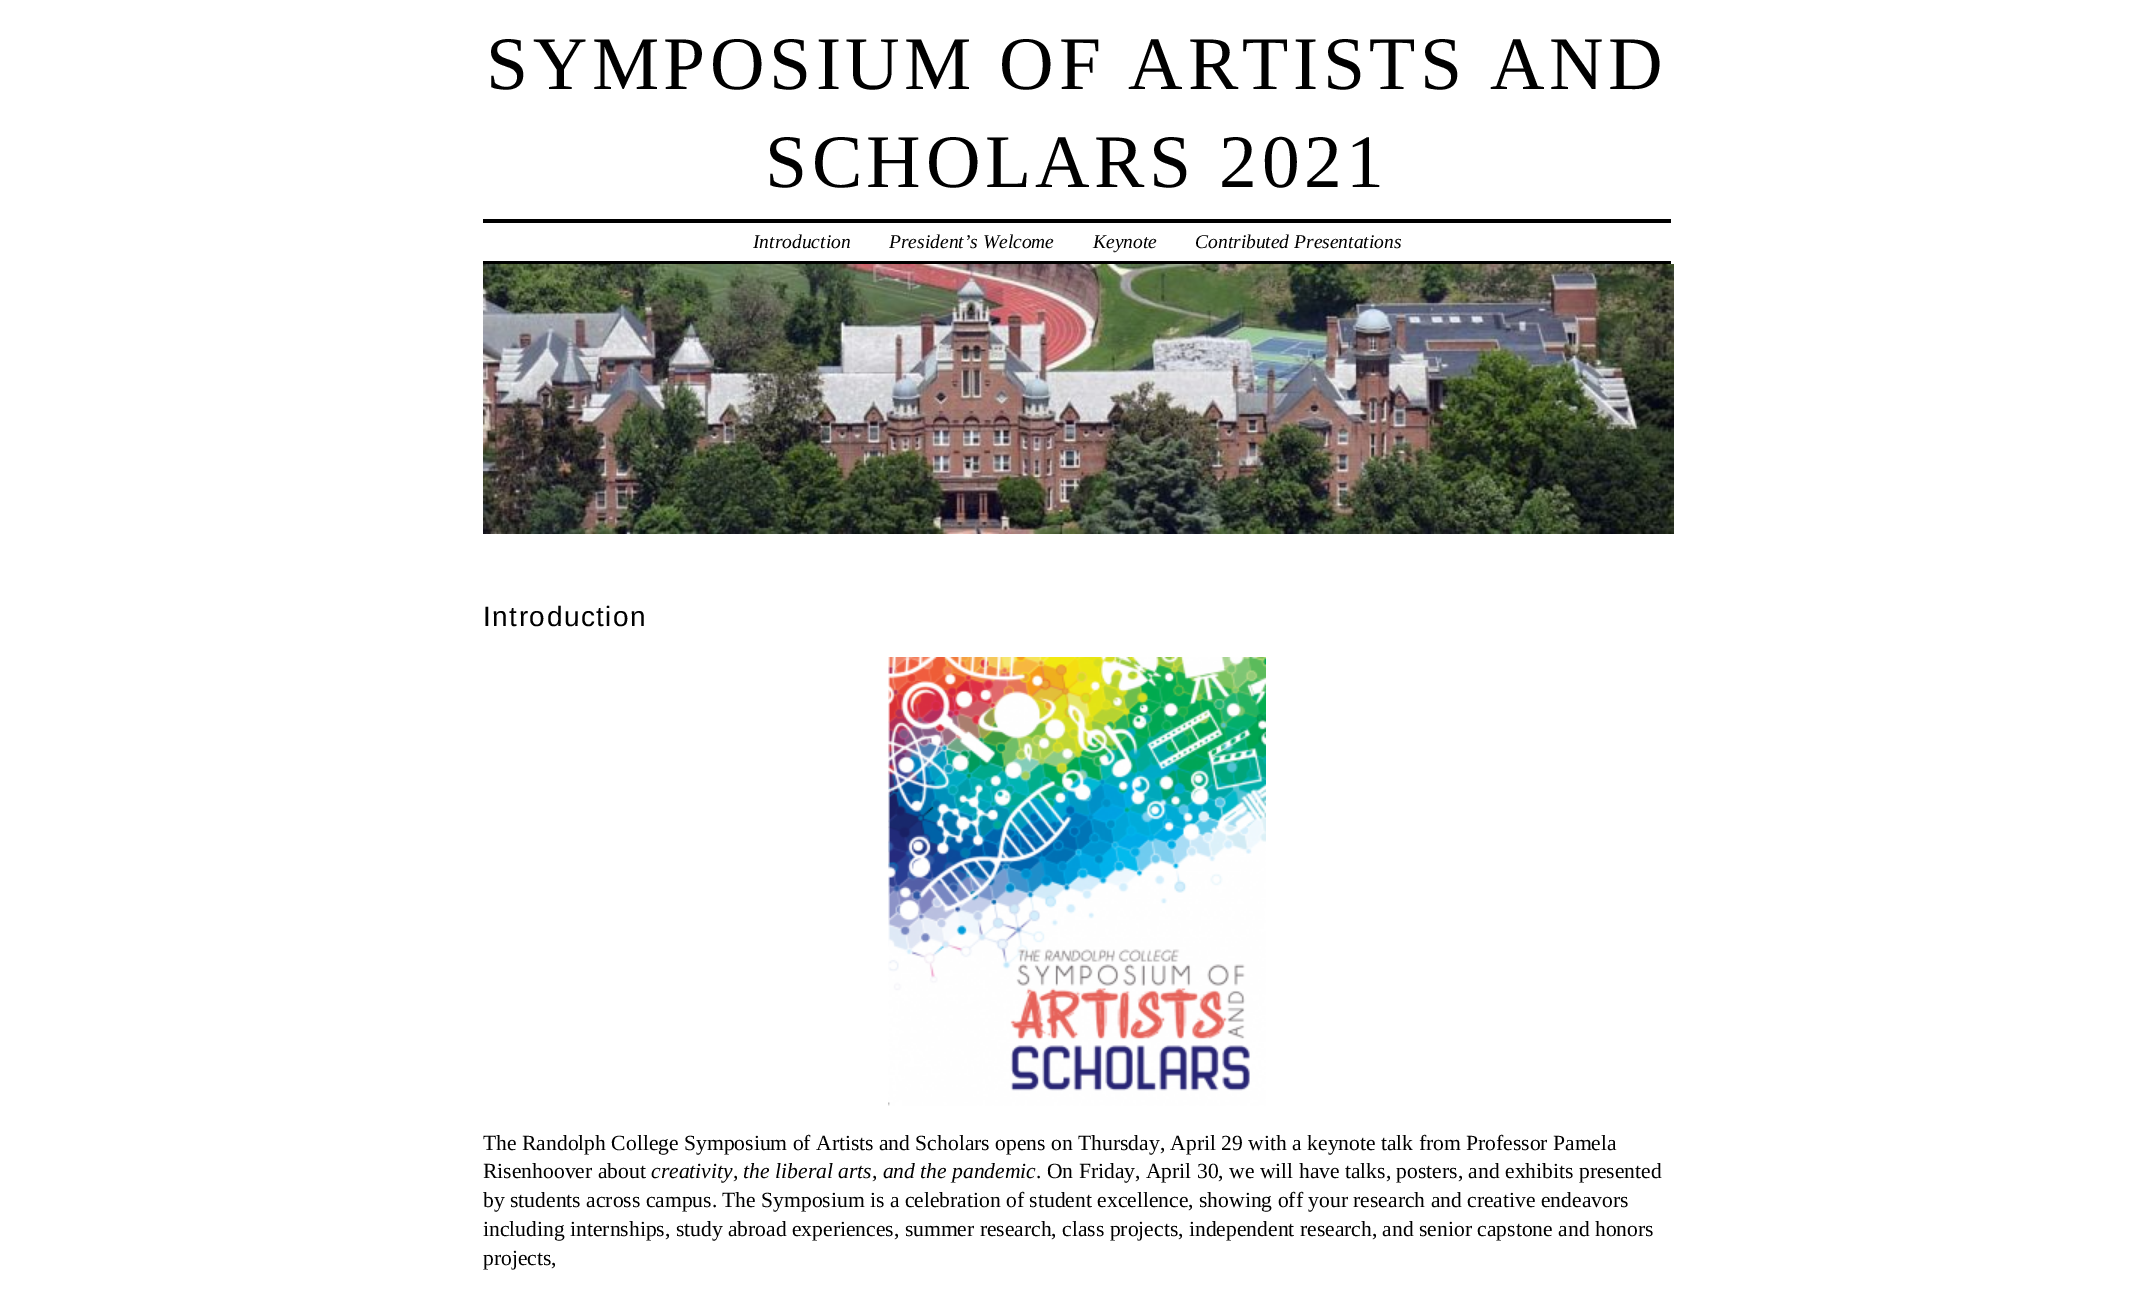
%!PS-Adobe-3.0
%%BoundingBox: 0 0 2153 1304
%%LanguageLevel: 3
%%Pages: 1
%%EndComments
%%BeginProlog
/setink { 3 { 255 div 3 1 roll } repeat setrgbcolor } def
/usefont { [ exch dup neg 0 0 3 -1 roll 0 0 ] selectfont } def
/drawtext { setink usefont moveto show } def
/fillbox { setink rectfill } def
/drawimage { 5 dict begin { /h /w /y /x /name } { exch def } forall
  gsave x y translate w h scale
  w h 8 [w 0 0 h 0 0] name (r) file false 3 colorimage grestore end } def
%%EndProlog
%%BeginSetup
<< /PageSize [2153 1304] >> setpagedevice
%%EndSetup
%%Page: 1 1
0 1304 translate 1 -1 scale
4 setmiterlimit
0 0 2153 1304 255 255 255 fillbox
/LiberationSerif-Regular 75.6 usefont
0 0 0 setink
486 89 moveto 4.5 0 (SYMPOSIUM OF ARTISTS AND) ashow
765 187 moveto 4.5 0 (SCHOLARS 2021) ashow
483 219 1188 4 0 0 0 fillbox
483 261 1188 3 0 0 0 fillbox
(Introduction) 753 248 /LiberationSerif-Italic 19.5 0 0 0 drawtext
(President’s Welcome) 889 248 /LiberationSerif-Italic 19.5 0 0 0 drawtext
(Keynote) 1093 248 /LiberationSerif-Italic 19.5 0 0 0 drawtext
(Contributed Presentations) 1195 248 /LiberationSerif-Italic 19.5 0 0 0 drawtext
(assets/img1.rgb) 483 264 1191 270 drawimage
/LiberationSans-Regular 28 usefont
483 626 moveto 1.5 0 (Introduction) ashow
(assets/img2.rgb) 888 657 378 449 drawimage
(The Randolph College Symposium of Artists and Scholars opens on Thursday, April 29 with a keynote talk from Professor Pamela) 483 1150 /LiberationSerif-Regular 21.6 0 0 0 drawtext
(Risenhoover about) 483 1178 /LiberationSerif-Regular 21.6 0 0 0 drawtext
(creativity, the liberal arts, and the pandemic) 651 1178 /LiberationSerif-Italic 21.6 0 0 0 drawtext
(. On Friday, April 30, we will have talks, posters, and exhibits presented) 1036 1178 /LiberationSerif-Regular 21.6 0 0 0 drawtext
(by students across campus. The Symposium is a celebration of student excellence, showing off your research and creative endeavors) 483 1207 /LiberationSerif-Regular 21.6 0 0 0 drawtext
(including internships, study abroad experiences, summer research, class projects, independent research, and senior capstone and honors) 483 1236 /LiberationSerif-Regular 21.6 0 0 0 drawtext
(projects,) 483 1265 /LiberationSerif-Regular 21.6 0 0 0 drawtext
showpage
%%EOF
